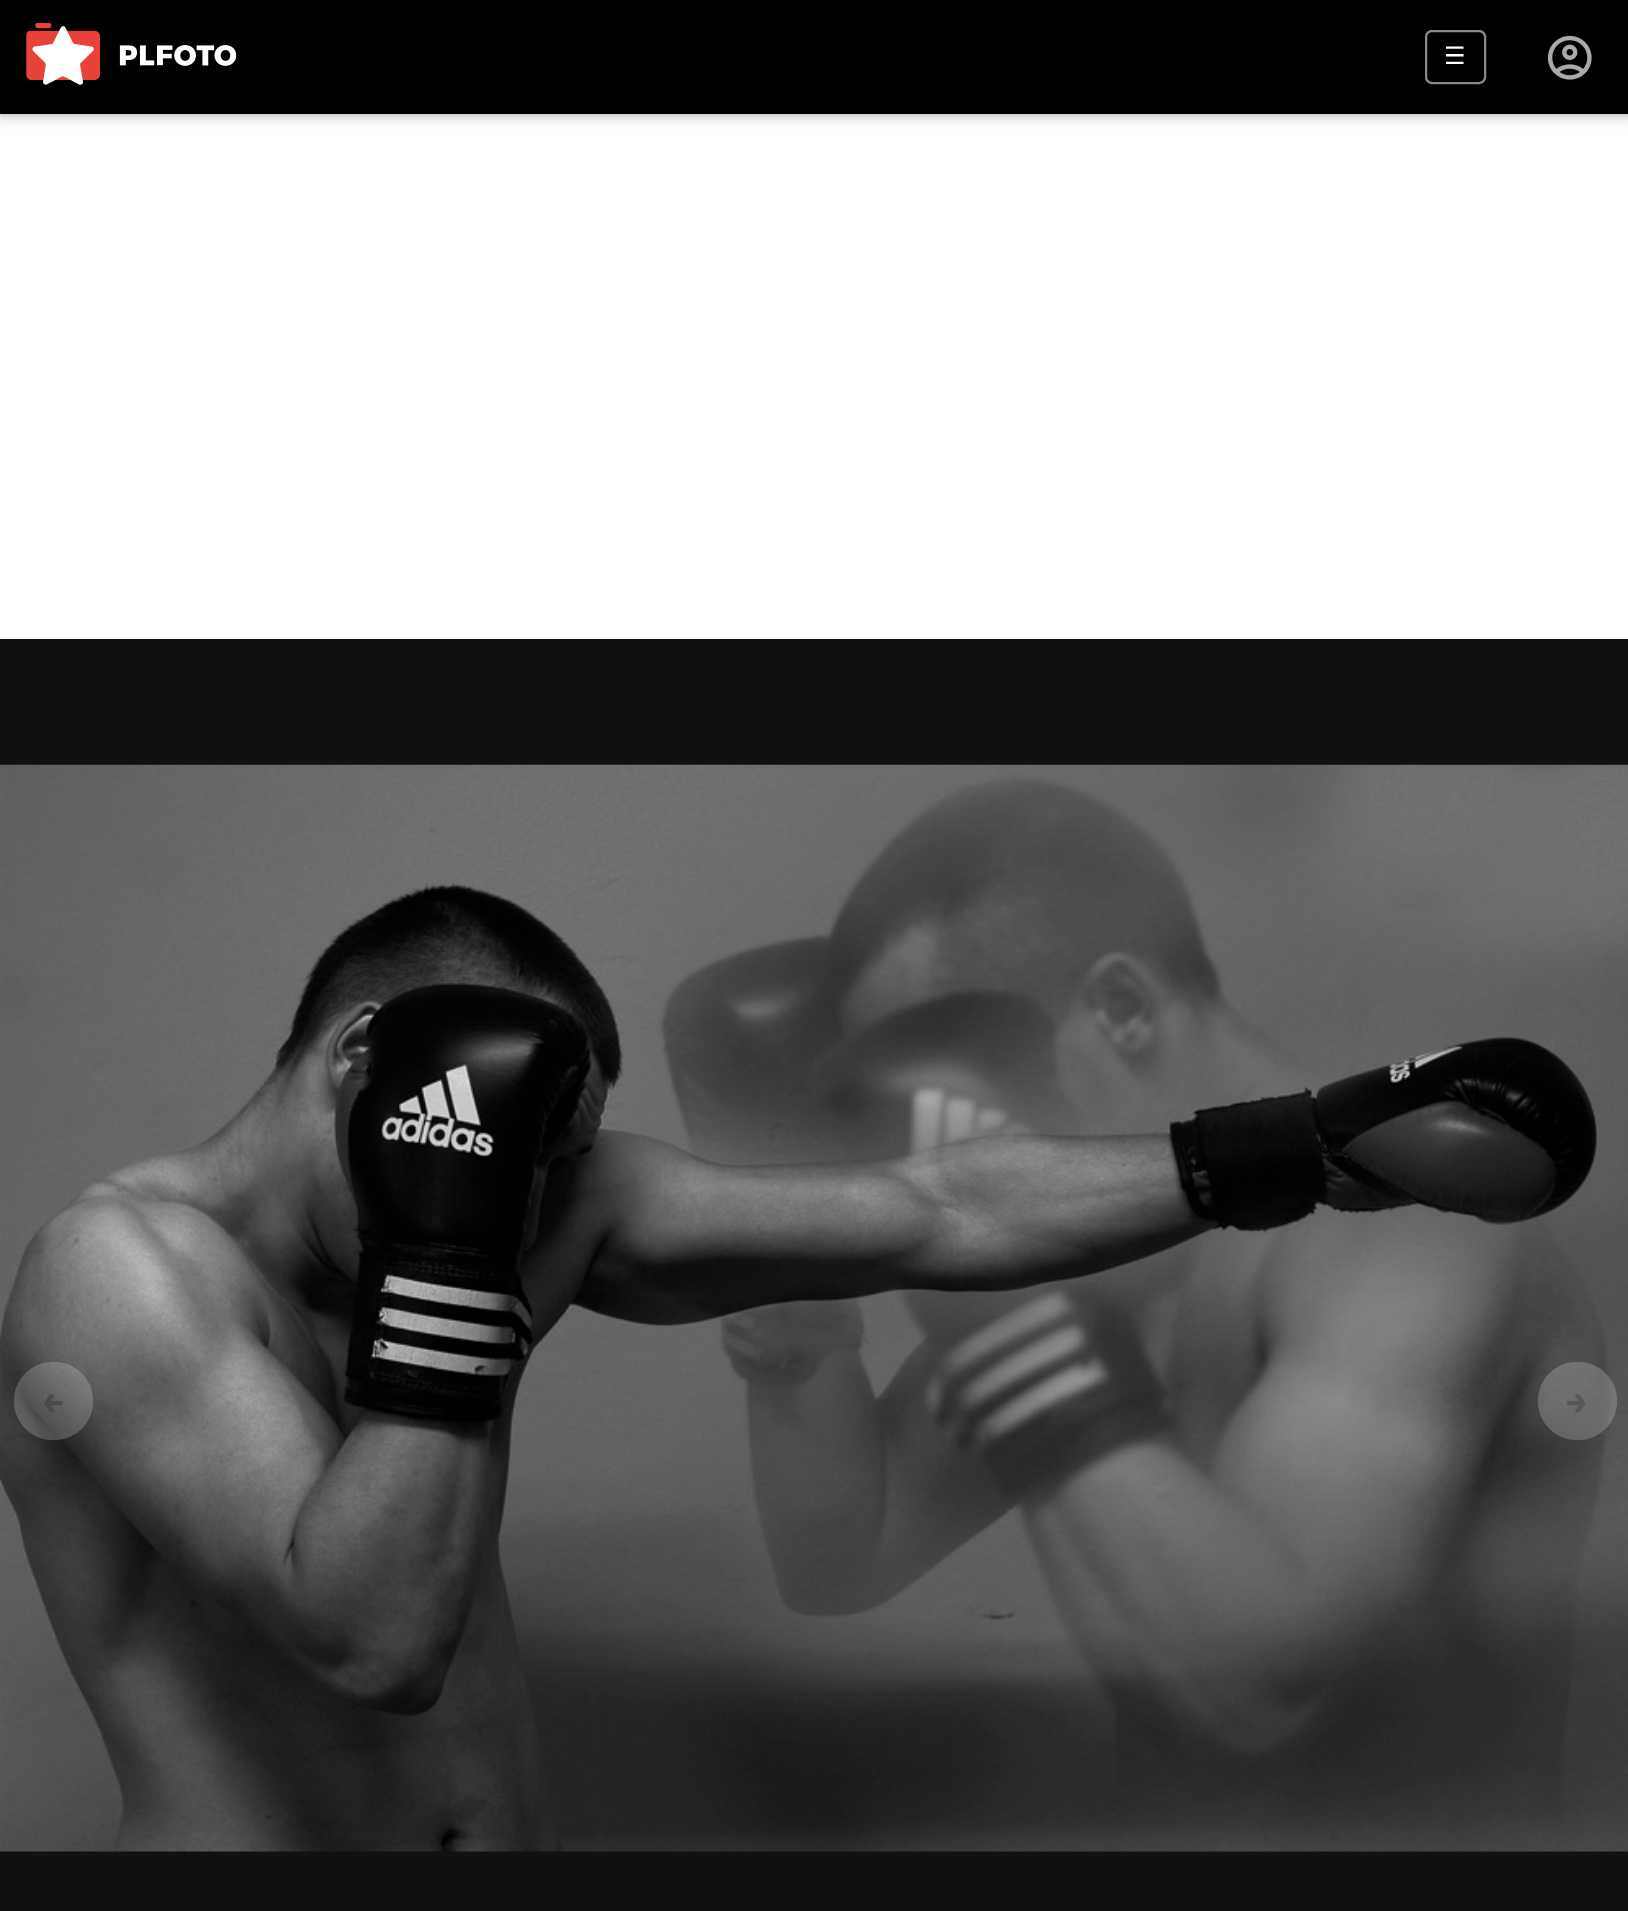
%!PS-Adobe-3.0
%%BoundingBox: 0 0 1628 1911
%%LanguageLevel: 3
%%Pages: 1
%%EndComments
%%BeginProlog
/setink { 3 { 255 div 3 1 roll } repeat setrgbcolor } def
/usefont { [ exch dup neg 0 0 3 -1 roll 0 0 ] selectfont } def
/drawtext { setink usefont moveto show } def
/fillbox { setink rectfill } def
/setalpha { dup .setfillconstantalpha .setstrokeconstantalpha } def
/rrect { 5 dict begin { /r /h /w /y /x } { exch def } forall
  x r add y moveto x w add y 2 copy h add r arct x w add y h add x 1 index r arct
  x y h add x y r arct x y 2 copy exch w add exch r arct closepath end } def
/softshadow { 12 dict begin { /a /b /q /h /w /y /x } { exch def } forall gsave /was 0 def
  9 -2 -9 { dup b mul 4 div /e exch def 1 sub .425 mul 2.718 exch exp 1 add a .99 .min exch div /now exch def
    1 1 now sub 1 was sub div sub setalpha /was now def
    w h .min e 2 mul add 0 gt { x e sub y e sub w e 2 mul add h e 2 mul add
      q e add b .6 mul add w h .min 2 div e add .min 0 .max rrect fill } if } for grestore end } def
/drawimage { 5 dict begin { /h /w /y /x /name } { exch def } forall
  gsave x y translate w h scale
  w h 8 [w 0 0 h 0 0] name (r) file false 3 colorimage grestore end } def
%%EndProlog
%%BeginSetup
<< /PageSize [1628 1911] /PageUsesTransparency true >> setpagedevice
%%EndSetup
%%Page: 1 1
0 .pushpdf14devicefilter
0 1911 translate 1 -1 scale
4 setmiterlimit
0 0 1628 1911 255 255 255 fillbox
0 0 0 setink
0 2 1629 114 0 2 0.11 softshadow
0 5 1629 114 0 6 0.13 softshadow
0 0 1628 114 0 0 0 fillbox
(assets/img1.rgb) 26 23 210 62 drawimage
136 136 136 setink
2 setlinewidth
1426 31 59 52 6 rrect stroke
(☰) 1444 64 /DejaVuSans-Regular 24 255 255 255 drawtext
(assets/img2.rgb) 1547 35 45 45 drawimage
0 639 1628 1272 17 17 17 fillbox
(assets/img3.rgb) 0 764 1628 1088 drawimage
0.2 setalpha
255 255 255 setink
14 1362 79 78 39 rrect fill
1 setalpha
(←) 41 1414 /Montserrat-Bold 39 75 75 75 drawtext
0.2 setalpha
255 255 255 setink
1538 1362 79 78 39 rrect fill
1 setalpha
(→) 1565 1414 /Montserrat-Bold 39 86 86 86 drawtext
.poppdf14devicefilter showpage
%%EOF
